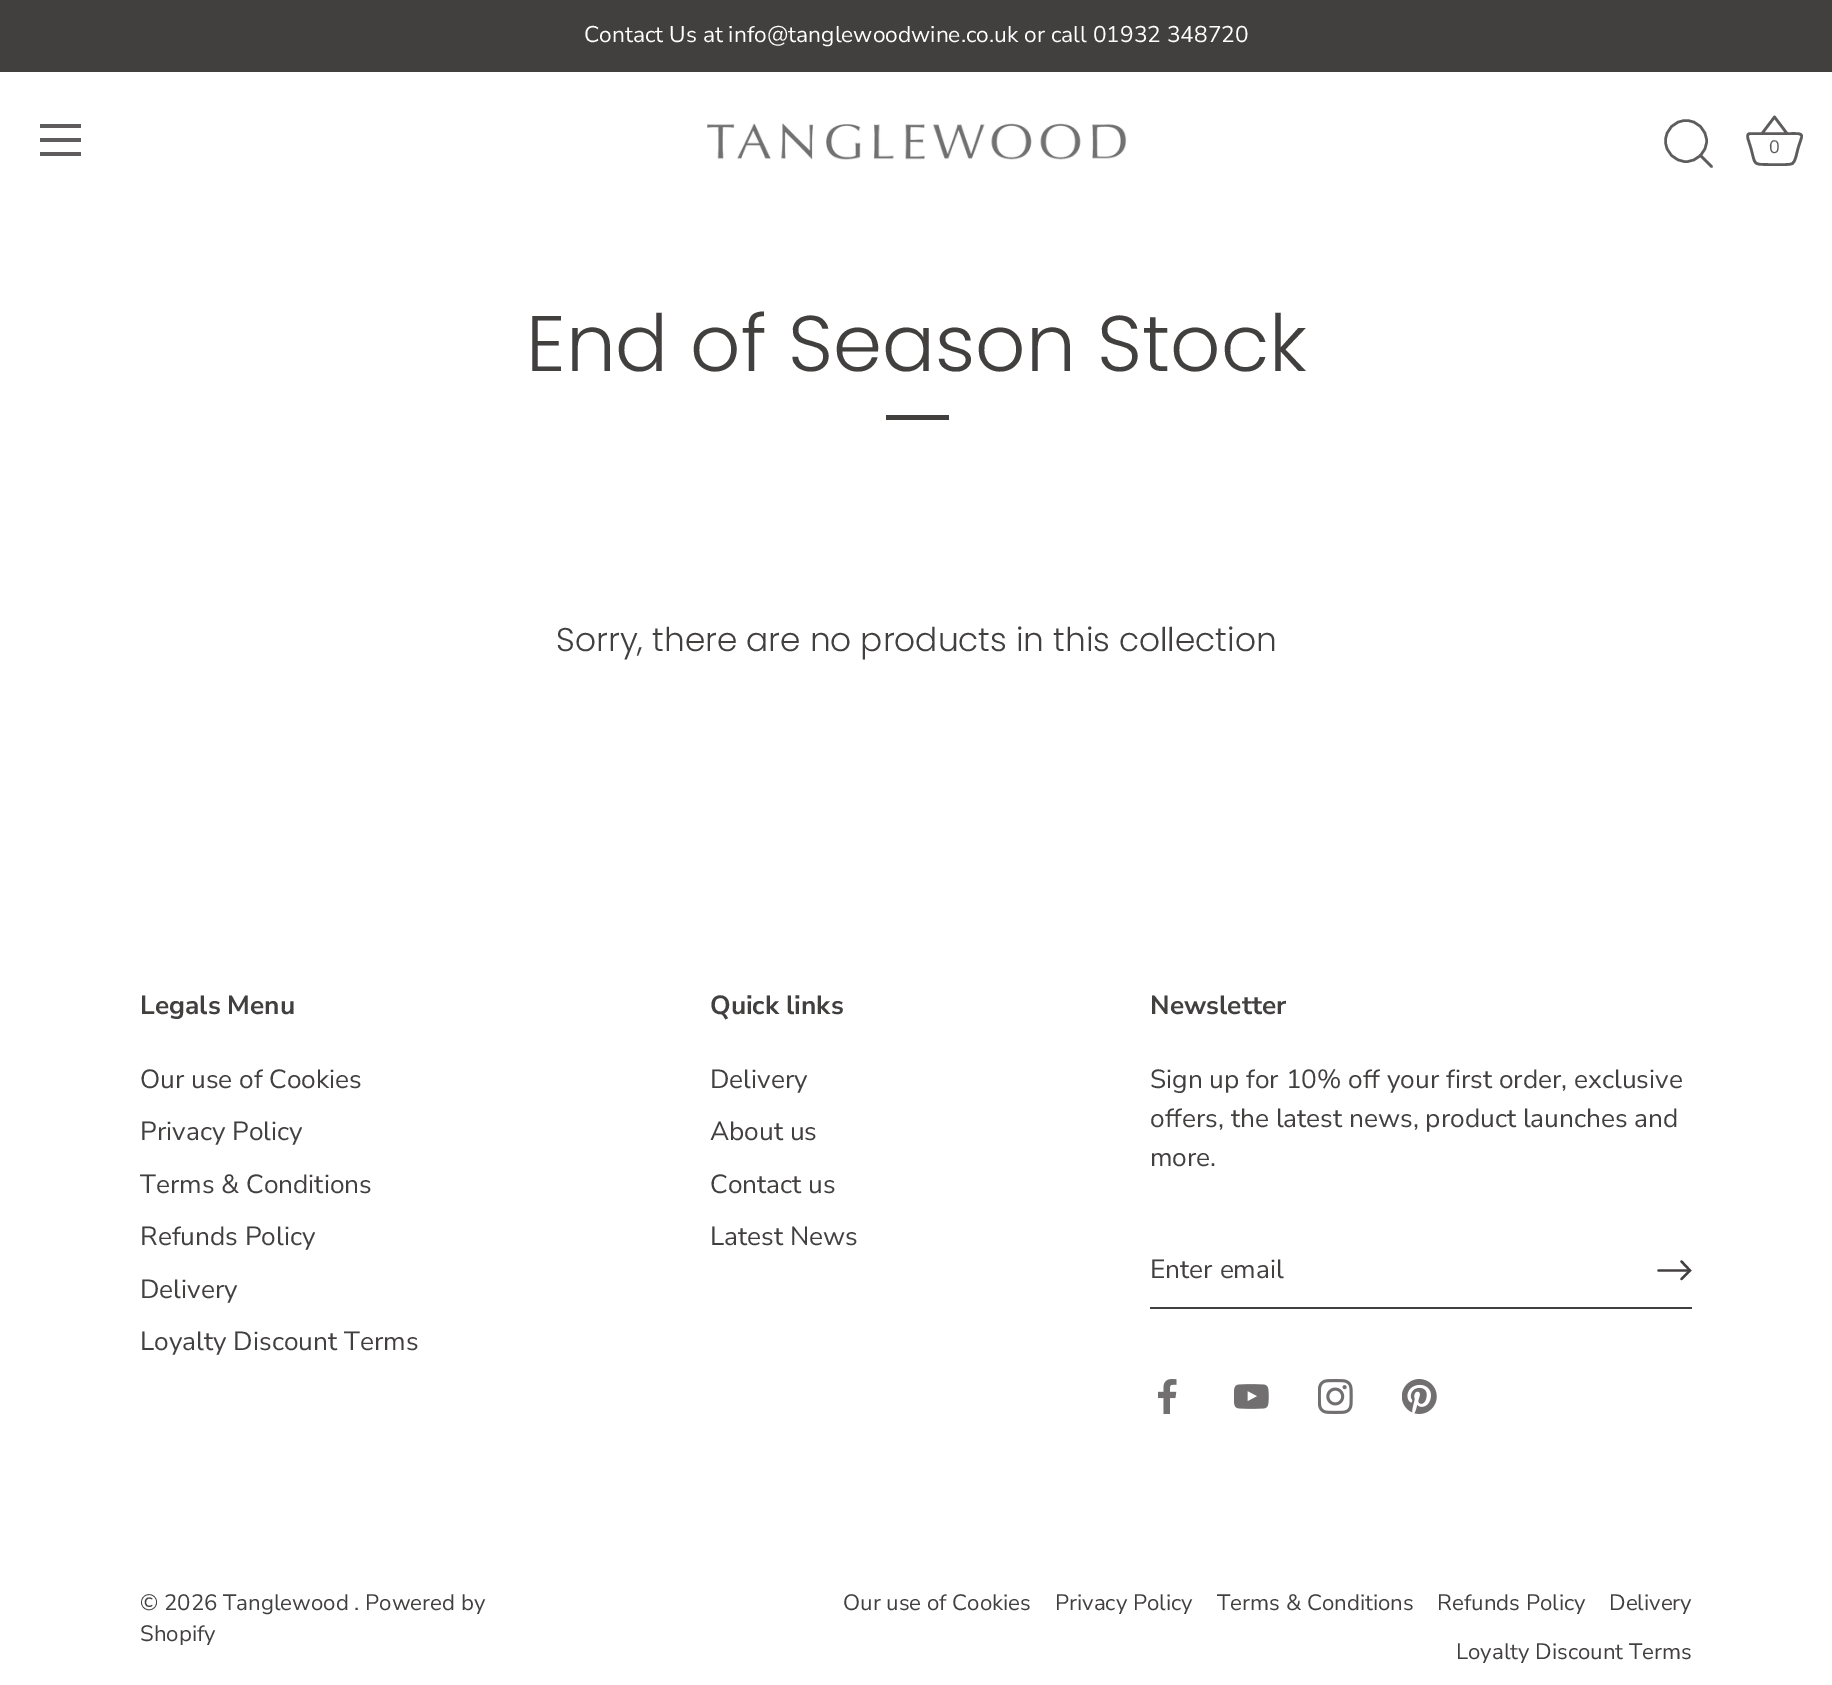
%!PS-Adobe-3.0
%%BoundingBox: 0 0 1832 1685
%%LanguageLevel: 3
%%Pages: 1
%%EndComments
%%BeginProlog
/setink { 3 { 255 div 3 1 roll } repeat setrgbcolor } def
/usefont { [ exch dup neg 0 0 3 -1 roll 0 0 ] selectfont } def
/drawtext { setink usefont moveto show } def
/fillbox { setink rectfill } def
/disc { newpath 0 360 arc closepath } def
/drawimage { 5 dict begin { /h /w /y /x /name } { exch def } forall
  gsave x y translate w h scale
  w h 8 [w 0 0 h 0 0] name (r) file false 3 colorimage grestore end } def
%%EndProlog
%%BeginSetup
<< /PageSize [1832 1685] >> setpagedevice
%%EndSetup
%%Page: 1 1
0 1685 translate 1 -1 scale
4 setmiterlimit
0 0 1832 1685 255 255 255 fillbox
0 0 1832 72 66 63 63 fillbox
(Contact Us at info@tanglewoodwine.co.uk or call 01932 348720) 584 42 /NunitoSans-Regular 22.75 255 255 255 drawtext
40 124 41 4 94 92 92 fillbox
40 138 41 4 94 92 92 fillbox
40 152 41 4 94 92 92 fillbox
(assets/img1.rgb) 707 123 420 37 drawimage
2.5 setlinewidth
1686 141 20.5 disc stroke
1 setlinecap
1 setlinejoin
1711.5 166.5 moveto 1700.5 155.5 lineto stroke
2.6 setlinewidth
0 setlinecap
1750 133.5 moveto 1746 133.5 1748 139 1748.5 140.5 curveto 1751 148.5 lineto 1755.5 165 1752.5 164.5 1769.5 164.5 curveto 1784.5 164.5 lineto 1793 164.5 1793.5 164.5 1796 156.5 curveto 1798 148.5 lineto 1802.5 133.5 1805.5 133.5 1790.5 133.5 curveto 1750 133.5 lineto 1762 133.5 moveto 1774.5 117 lineto 1787 133.5 lineto stroke
(0) 1769 153 /NunitoSans-Regular 18 94 92 92 drawtext
(End of Season Stock) 526 371 /Poppins-Light 78.75 66 63 63 drawtext
886 415 63 5 66 63 63 fillbox
(Sorry, there are no products in this collection) 556 651 /Poppins-Light 32.8 66 63 63 drawtext
(Legals Menu) 140 1014 /NunitoSans-Bold 26.25 66 63 63 drawtext
(Our use of Cookies) 140 1088 /NunitoSans-Regular 26.25 66 63 63 drawtext
(Privacy Policy) 140 1140 /NunitoSans-Regular 26.25 66 63 63 drawtext
(Terms & Conditions) 140 1193 /NunitoSans-Regular 26.25 66 63 63 drawtext
(Refunds Policy) 140 1245 /NunitoSans-Regular 26.25 66 63 63 drawtext
(Delivery) 140 1298 /NunitoSans-Regular 26.25 66 63 63 drawtext
(Loyalty Discount Terms) 140 1350 /NunitoSans-Regular 26.25 66 63 63 drawtext
(Quick links) 710 1014 /NunitoSans-Bold 26.25 66 63 63 drawtext
(Delivery) 710 1088 /NunitoSans-Regular 26.25 66 63 63 drawtext
(About us) 710 1140 /NunitoSans-Regular 26.25 66 63 63 drawtext
(Contact us) 710 1193 /NunitoSans-Regular 26.25 66 63 63 drawtext
(Latest News) 710 1245 /NunitoSans-Regular 26.25 66 63 63 drawtext
(Newsletter) 1150 1014 /NunitoSans-Bold 26.25 66 63 63 drawtext
(Sign up for 10% off your first order, exclusive) 1150 1088 /NunitoSans-Regular 26.25 66 63 63 drawtext
(offers, the latest news, product launches and) 1150 1127 /NunitoSans-Regular 26.25 66 63 63 drawtext
(more.) 1150 1166 /NunitoSans-Regular 26.25 66 63 63 drawtext
1150 1307 542 2 66 63 63 fillbox
(Enter email) 1150 1278 /NunitoSans-Regular 26.25 66 63 63 drawtext
2.3 setlinewidth
1 setlinecap
0 setlinejoin
1681.5 1279 moveto 1690 1270.5 lineto 1681.5 1261.5 lineto stroke
1 setlinejoin
1689 1270.5 moveto 1658.5 1270.5 lineto stroke
(assets/img2.rgb) 1158 1379 19 35 drawimage
(assets/img3.rgb) 1234 1384 35 25 drawimage
(assets/img4.rgb) 1318 1379 35 35 drawimage
(assets/img5.rgb) 1402 1379 35 35 drawimage
(© 2026 Tanglewood . Powered by) 140 1610 /NunitoSans-Regular 22.25 66 63 63 drawtext
(Shopify) 140 1641 /NunitoSans-Regular 22.25 66 63 63 drawtext
(Our use of Cookies) 843 1610 /NunitoSans-Regular 22.25 66 63 63 drawtext
(Privacy Policy) 1055 1610 /NunitoSans-Regular 22.25 66 63 63 drawtext
(Terms & Conditions) 1217 1610 /NunitoSans-Regular 22.25 66 63 63 drawtext
(Refunds Policy) 1437 1610 /NunitoSans-Regular 22.25 66 63 63 drawtext
(Delivery) 1609 1610 /NunitoSans-Regular 22.25 66 63 63 drawtext
(Loyalty Discount Terms) 1456 1659 /NunitoSans-Regular 22.25 66 63 63 drawtext
showpage
%%EOF
